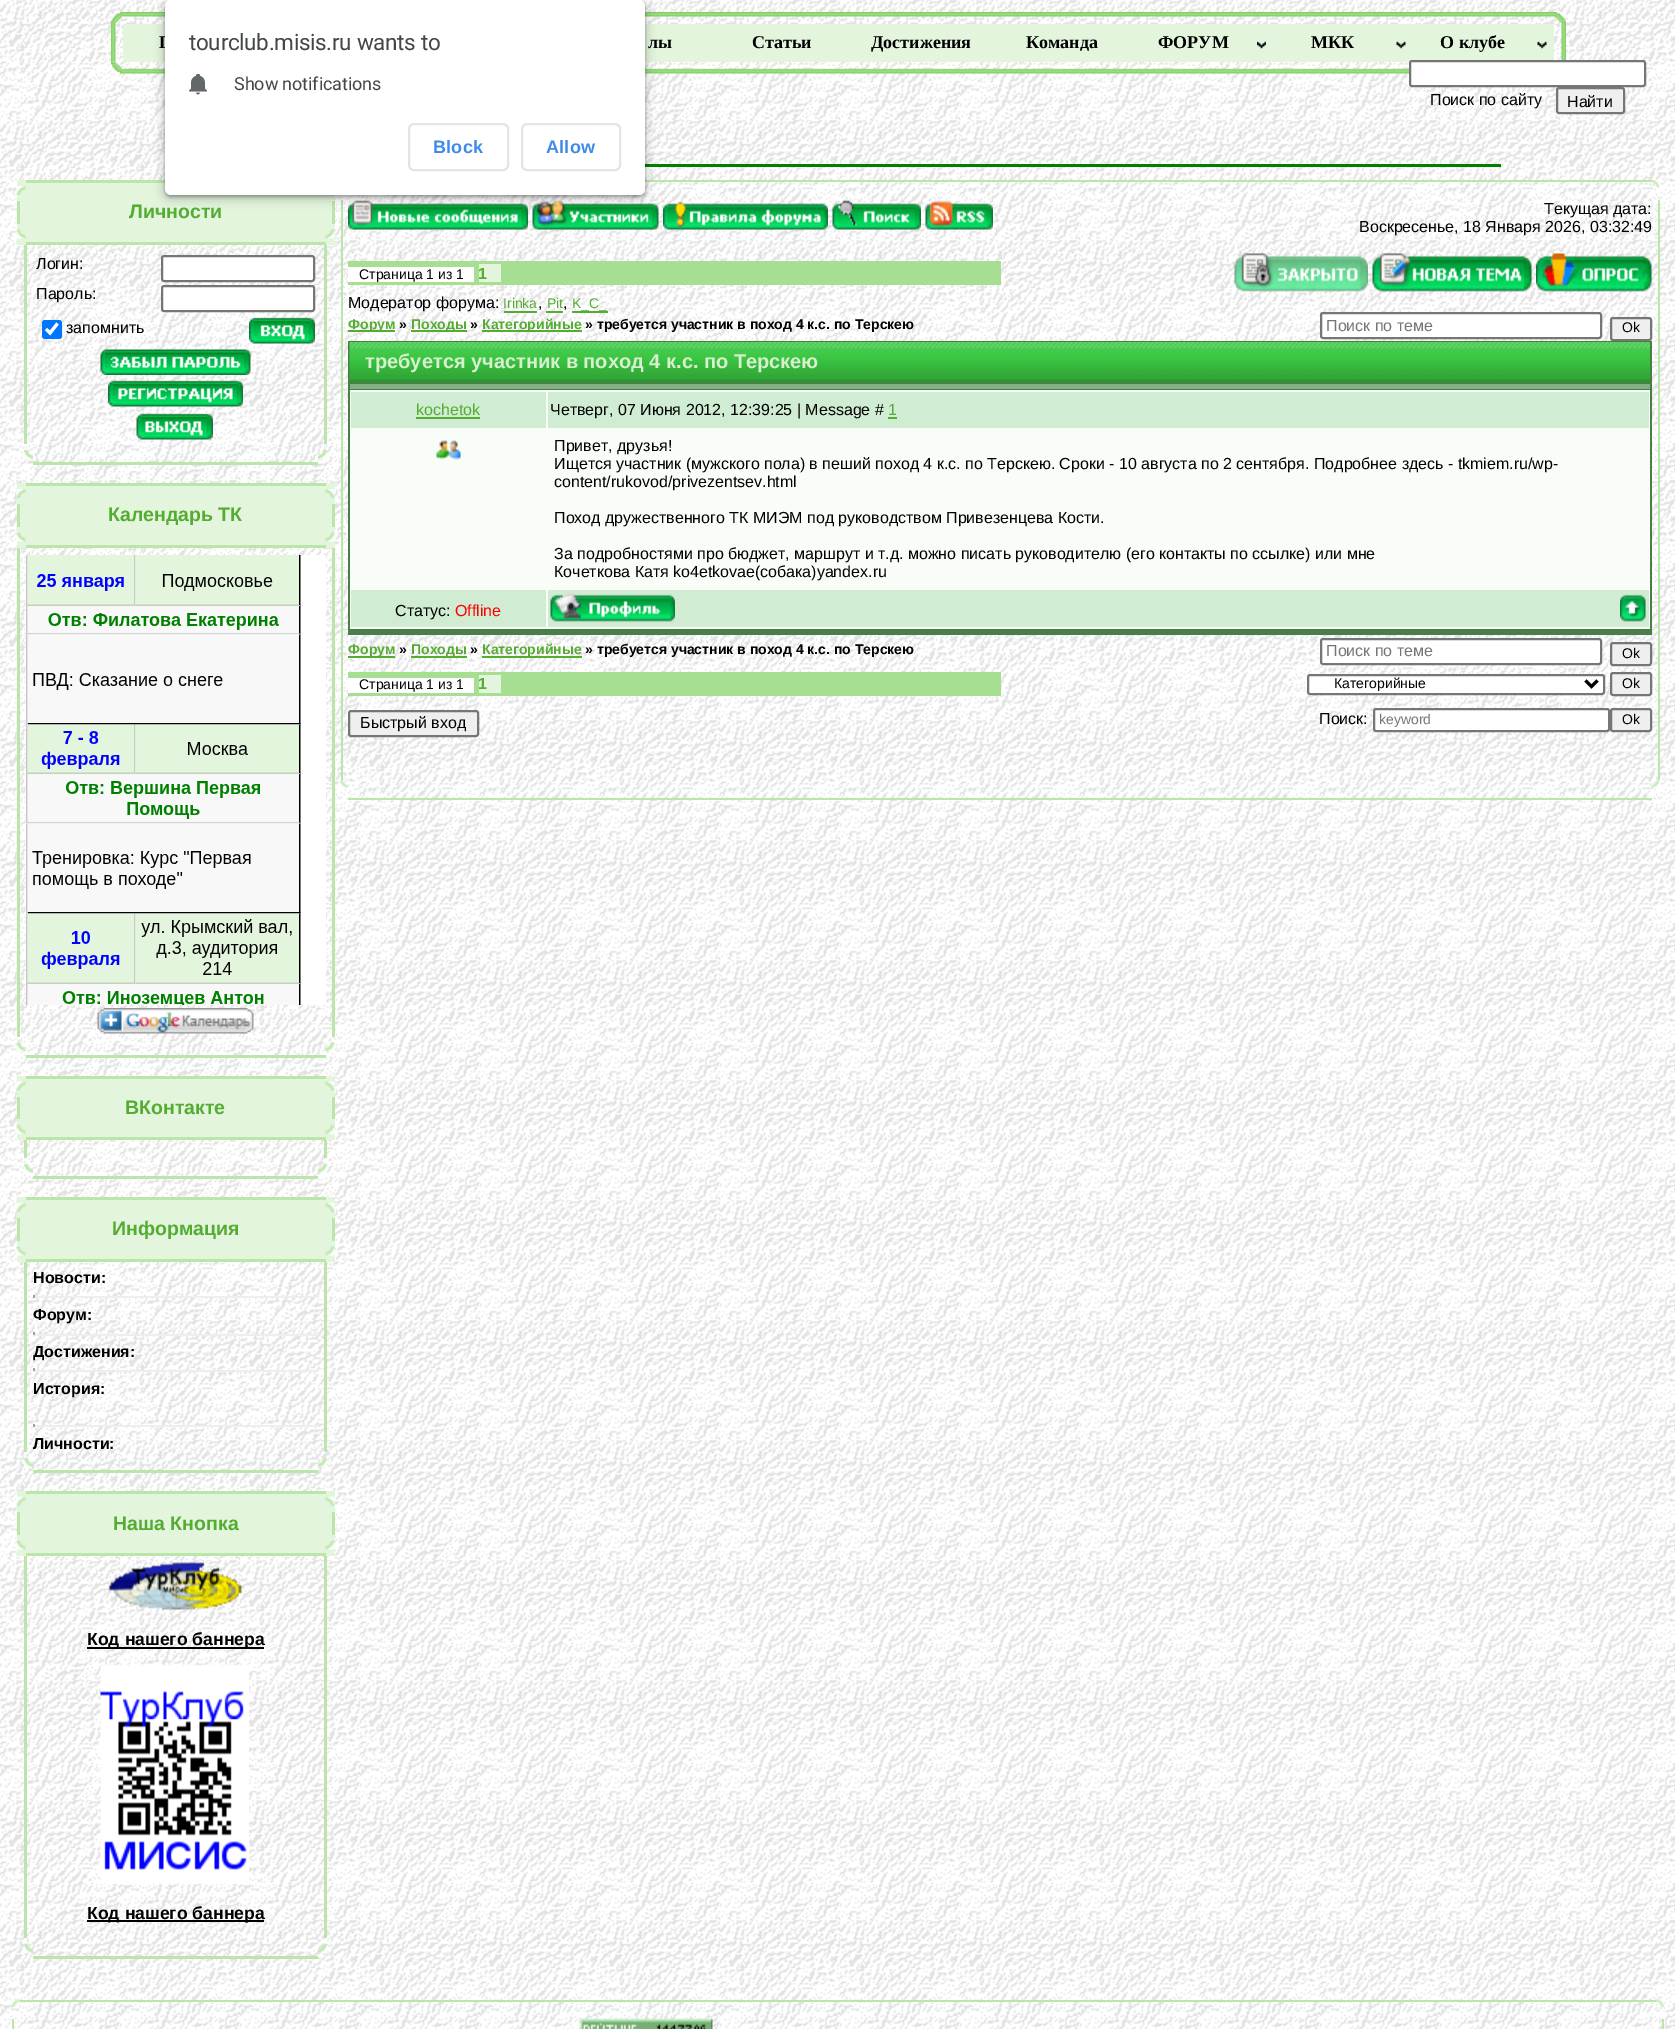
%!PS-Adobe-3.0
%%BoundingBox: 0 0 1675 2029
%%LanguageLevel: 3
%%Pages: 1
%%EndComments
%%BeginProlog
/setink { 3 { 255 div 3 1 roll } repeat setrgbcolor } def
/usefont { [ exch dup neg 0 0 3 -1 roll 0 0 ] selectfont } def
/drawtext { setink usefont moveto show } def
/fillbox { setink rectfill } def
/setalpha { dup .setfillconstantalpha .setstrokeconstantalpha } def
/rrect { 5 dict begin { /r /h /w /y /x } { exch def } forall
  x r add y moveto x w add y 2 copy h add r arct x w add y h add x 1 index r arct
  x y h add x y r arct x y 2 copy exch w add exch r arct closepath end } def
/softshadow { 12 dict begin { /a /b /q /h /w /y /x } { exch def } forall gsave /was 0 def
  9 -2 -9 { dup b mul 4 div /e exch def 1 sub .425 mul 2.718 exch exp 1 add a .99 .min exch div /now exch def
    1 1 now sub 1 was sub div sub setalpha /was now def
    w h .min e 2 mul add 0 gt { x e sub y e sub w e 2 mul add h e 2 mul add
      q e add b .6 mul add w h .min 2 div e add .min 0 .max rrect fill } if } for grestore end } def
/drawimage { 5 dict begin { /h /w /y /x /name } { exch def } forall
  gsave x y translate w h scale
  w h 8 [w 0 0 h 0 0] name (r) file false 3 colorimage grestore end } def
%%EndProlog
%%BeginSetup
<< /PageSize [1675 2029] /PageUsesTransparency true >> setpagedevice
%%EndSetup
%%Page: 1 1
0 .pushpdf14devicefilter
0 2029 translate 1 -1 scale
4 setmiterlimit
0 0 1675 2029 255 255 255 fillbox
(assets/img1.rgb) 0 0 1675 2029 drawimage
(assets/img4.rgb) 123 12 1431 5 drawimage
123 24 1431 38 228 245 222 fillbox
(assets/img11.rgb) 123 68 1286 6 drawimage
645 164 856 3 0 128 0 fillbox
17 180 318 65 228 245 222 fillbox
26 180 139 3 187 230 170 fillbox
332 201 3 23 187 230 170 fillbox
645 180 1007 2 187 230 170 fillbox
341 200 2 580 187 230 170 fillbox
(assets/img48.rgb) 348 200 180 30 drawimage
(assets/img49.rgb) 532 200 127 30 drawimage
0 0 0 setink
162 0 486 201 9 4.5 0.15 softshadow
165 2 480 195 6 1.5 0.3 softshadow
(Г) 159 48 /LiberationSerif-Bold 18 0 0 0 drawtext
255 255 255 setink
165 0 480 195 6 rrect fill
/Roboto-Regular 22.5 usefont
67 71 73 setink
189 50 moveto -0.35 0 (tourclub.misis.ru wants to) ashow
(assets/img2.rgb) 189 74 18 21 drawimage
/Roboto-Regular 18 usefont
234 90 moveto -0.1 0 (Show notifications) ashow
228 228 228 setink
2 setlinewidth
409 124 99 46 5 rrect stroke
/LiberationSans-Bold 18 usefont
64 137 232 setink
433 153 moveto 0.25 0 (Block) ashow
228 228 228 setink
522 124 98 46 5 rrect stroke
64 137 232 setink
546 153 moveto 0.25 0 (Allow) ashow
(assets/img3.rgb) 111 12 12 12 drawimage
(assets/img5.rgb) 1554 12 12 12 drawimage
(assets/img6.rgb) 111 24 5 38 drawimage
(лы) 648 48 /LiberationSerif-Bold 18 0 0 0 drawtext
(Статьи) 752 48 /LiberationSerif-Bold 18 0 0 0 drawtext
(Достижения) 871 48 /LiberationSerif-Bold 18 0 0 0 drawtext
(Команда) 1026 48 /LiberationSerif-Bold 18 0 0 0 drawtext
(ФОРУМ) 1158 48 /LiberationSerif-Bold 18 0 0 0 drawtext
(assets/img7.rgb) 1257 41 9 8 drawimage
(МКК) 1311 48 /LiberationSerif-Bold 18 0 0 0 drawtext
(assets/img8.rgb) 1396 41 10 8 drawimage
(О клубе) 1440 48 /LiberationSerif-Bold 18 0 0 0 drawtext
(assets/img8.rgb) 1537 41 10 8 drawimage
(assets/img9.rgb) 1561 24 5 36 drawimage
(assets/img10.rgb) 111 61 12 13 drawimage
255 255 255 setink
1410 61 235 25 2 rrect gsave fill grestore
118 118 118 setink
stroke
(Поиск по сайту) 1430 105 /LiberationSans-Regular 16 0 0 0 drawtext
239 239 239 setink
1557 88 67 25 2 rrect gsave fill grestore
118 118 118 setink
stroke
(Найти) 1567 107 /LiberationSans-Regular 16 0 0 0 drawtext
(assets/img12.rgb) 16 186 10 9 drawimage
17 201 3 23 187 230 170 fillbox
(Личности) 129 218 /LiberationSans-Bold 19.5 84 172 50 drawtext
(assets/img13.rgb) 16 229 10 10 drawimage
(assets/img14.rgb) 325 229 10 10 drawimage
26 242 300 3 187 230 170 fillbox
24 245 3 199 187 230 170 fillbox
(Логин:) 36 269 /LiberationSans-Regular 16 0 0 0 drawtext
255 255 255 setink
162 256 152 25 2 rrect gsave fill grestore
118 118 118 setink
stroke
(Пароль:) 36 299 /LiberationSans-Regular 16 0 0 0 drawtext
255 255 255 setink
162 286 152 25 2 rrect gsave fill grestore
118 118 118 setink
stroke
0 117 255 setink
42 320 20 19 3 rrect fill
255 255 255 setink
3.1 setlinewidth
46 329 moveto 50 333 lineto 57.5 323.5 lineto stroke
(запомнить) 66 333 /LiberationSans-Regular 16 0 0 0 drawtext
(assets/img15.rgb) 249 317 66 27 drawimage
(assets/img16.rgb) 100 349 151 26 drawimage
(assets/img17.rgb) 108 380 135 27 drawimage
(assets/img18.rgb) 136 413 77 27 drawimage
324 245 3 199 187 230 170 fillbox
(assets/img19.rgb) 24 450 9 9 drawimage
(assets/img20.rgb) 318 450 9 9 drawimage
33 462 285 3 187 230 170 fillbox
17 483 318 65 228 245 222 fillbox
26 483 300 3 187 230 170 fillbox
(assets/img21.rgb) 16 489 10 9 drawimage
(assets/img22.rgb) 325 489 10 9 drawimage
17 504 3 23 187 230 170 fillbox
(Календарь ТК) 108 521 /LiberationSans-Bold 19.5 84 172 50 drawtext
332 504 3 23 187 230 170 fillbox
(assets/img23.rgb) 16 532 10 10 drawimage
(assets/img14.rgb) 325 532 10 10 drawimage
26 545 300 3 187 230 170 fillbox
17 548 3 489 187 230 170 fillbox
(assets/img24.rgb) 25 555 301 450 drawimage
(assets/img25.rgb) 97 1008 157 26 drawimage
332 548 3 489 187 230 170 fillbox
(assets/img26.rgb) 16 1042 10 10 drawimage
(assets/img27.rgb) 325 1042 10 10 drawimage
26 1055 300 3 187 230 170 fillbox
17 1076 318 64 228 245 222 fillbox
26 1076 300 3 187 230 170 fillbox
(assets/img28.rgb) 16 1081 10 10 drawimage
(assets/img29.rgb) 325 1081 10 10 drawimage
17 1097 3 22 187 230 170 fillbox
(ВКонтакте) 125 1114 /LiberationSans-Bold 19.5 84 172 50 drawtext
332 1097 3 22 187 230 170 fillbox
(assets/img30.rgb) 16 1124 10 11 drawimage
(assets/img31.rgb) 325 1124 10 11 drawimage
26 1137 300 3 187 230 170 fillbox
24 1140 3 18 187 230 170 fillbox
324 1140 3 18 187 230 170 fillbox
(assets/img32.rgb) 24 1163 9 11 drawimage
(assets/img33.rgb) 318 1163 9 11 drawimage
33 1176 285 3 187 230 170 fillbox
17 1197 318 65 228 245 222 fillbox
26 1197 300 3 187 230 170 fillbox
(assets/img34.rgb) 16 1202 10 11 drawimage
(assets/img35.rgb) 325 1202 10 11 drawimage
17 1218 3 23 187 230 170 fillbox
(Информация) 112 1235 /LiberationSans-Bold 19.5 84 172 50 drawtext
332 1218 3 23 187 230 170 fillbox
(assets/img36.rgb) 16 1246 10 10 drawimage
(assets/img37.rgb) 325 1246 10 10 drawimage
26 1259 300 3 187 230 170 fillbox
24 1262 3 190 187 230 170 fillbox
(Новости:) 33 1283 /LiberationSans-Bold 16 0 0 0 drawtext
317 1295 2 3 238 238 238 fillbox
33 1296 285 2 238 238 238 fillbox
33 1295 2 3 159 159 159 fillbox
(Форум:) 33 1320 /LiberationSans-Bold 16 0 0 0 drawtext
317 1332 2 3 238 238 238 fillbox
33 1334 285 2 238 238 238 fillbox
33 1332 2 3 159 159 159 fillbox
(Достижения:) 33 1357 /LiberationSans-Bold 16 0 0 0 drawtext
317 1368 2 3 238 238 238 fillbox
33 1370 285 2 238 238 238 fillbox
33 1368 2 3 159 159 159 fillbox
(История:) 33 1394 /LiberationSans-Bold 16 0 0 0 drawtext
317 1424 2 3 238 238 238 fillbox
33 1425 285 2 238 238 238 fillbox
33 1424 2 3 159 159 159 fillbox
(Личности:) 33 1449 /LiberationSans-Bold 16 0 0 0 drawtext
324 1262 3 190 187 230 170 fillbox
(assets/img38.rgb) 24 1457 9 11 drawimage
(assets/img39.rgb) 318 1457 9 11 drawimage
33 1470 285 3 187 230 170 fillbox
17 1491 318 65 228 245 222 fillbox
26 1491 300 3 187 230 170 fillbox
(assets/img40.rgb) 16 1496 10 11 drawimage
(assets/img41.rgb) 325 1496 10 11 drawimage
17 1512 3 23 187 230 170 fillbox
(Наша Кнопка) 113 1530 /LiberationSans-Bold 19.5 84 172 50 drawtext
332 1512 3 23 187 230 170 fillbox
(assets/img42.rgb) 16 1540 10 10 drawimage
(assets/img37.rgb) 325 1540 10 10 drawimage
26 1553 300 3 187 230 170 fillbox
24 1556 3 382 187 230 170 fillbox
(assets/img43.rgb) 109 1562 133 48 drawimage
87 1647 177 2 0 0 0 fillbox
(Код нашего баннера) 87 1645 /LiberationSans-Bold 17.6 0 0 0 drawtext
(assets/img44.rgb) 100 1664 149 221 drawimage
87 1920 177 2 0 0 0 fillbox
(Код нашего баннера) 87 1919 /LiberationSans-Bold 17.6 0 0 0 drawtext
324 1556 3 382 187 230 170 fillbox
(assets/img45.rgb) 24 1943 9 11 drawimage
(assets/img46.rgb) 318 1943 9 11 drawimage
33 1956 285 3 187 230 170 fillbox
(assets/img47.rgb) 1651 180 8 8 drawimage
(assets/img50.rgb) 663 201 165 29 drawimage
(assets/img51.rgb) 832 200 89 30 drawimage
(assets/img52.rgb) 925 200 68 30 drawimage
(Текущая дата:) 1544 214 /LiberationSans-Regular 16 0 0 0 drawtext
(Воскресенье, 18 Января 2026, 03:32:49) 1359 232 /LiberationSans-Regular 16 0 0 0 drawtext
348 261 653 24 166 223 145 fillbox
348 267 126 15 255 255 255 fillbox
(Страница 1 из 1) 359 279 /LiberationSans-Regular 14 0 0 0 drawtext
479 264 22 18 228 245 222 fillbox
(1) 478 279 /LiberationSans-Bold 16 84 172 50 drawtext
(assets/img53.rgb) 1234 253 134 39 drawimage
(assets/img54.rgb) 1372 253 160 39 drawimage
(assets/img55.rgb) 1536 253 116 39 drawimage
(Модератор форума:) 348 308 /LiberationSans-Regular 16 0 0 0 drawtext
(Irinka) 503 308 /LiberationSans-Regular 14 84 172 50 drawtext
(,) 538 308 /LiberationSans-Regular 16 0 0 0 drawtext
504 311 33 2 84 172 50 fillbox
(Pit) 547 308 /LiberationSans-Regular 14 84 172 50 drawtext
(,) 563 308 /LiberationSans-Regular 16 0 0 0 drawtext
546 311 17 2 84 172 50 fillbox
572 311 36 2 84 172 50 fillbox
(K_C_) 572 308 /LiberationSans-Regular 14 84 172 50 drawtext
348 330 47 2 84 172 50 fillbox
(Форум) 348 329 /LiberationSans-Bold 14 84 172 50 drawtext
(») 399 329 /LiberationSans-Bold 14 0 0 0 drawtext
411 330 56 2 84 172 50 fillbox
(Походы) 411 329 /LiberationSans-Bold 14 84 172 50 drawtext
(») 470 329 /LiberationSans-Bold 14 0 0 0 drawtext
482 330 100 2 84 172 50 fillbox
(Категорийные) 482 329 /LiberationSans-Bold 14 84 172 50 drawtext
(» требуется участник в поход 4 к.с. по Терскею) 585 329 /LiberationSans-Bold 14 0 0 0 drawtext
255 255 255 setink
1321 313 280 25 2 rrect gsave fill grestore
118 118 118 setink
2 setlinewidth
stroke
(Поиск по теме) 1326 331 /LiberationSans-Regular 16 117 117 117 drawtext
239 239 239 setink
1611 318 40 22 2 rrect gsave fill grestore
118 118 118 setink
stroke
(Ok) 1622 332 /LiberationSans-Regular 14 0 0 0 drawtext
348 341 1304 294 74 126 71 fillbox
(assets/img56.rgb) 349 342 1301 41 drawimage
(требуется участник в поход 4 к.с. по Терскею) 365 368 /LiberationSans-Bold 20 215 240 206 drawtext
350 384 1300 5 132 177 131 fillbox
350 390 1300 239 249 253 247 fillbox
351 392 195 36 208 236 210 fillbox
(kochetok) 416 415 /LiberationSans-Regular 16 84 172 50 drawtext
416 417 64 2 84 172 50 fillbox
548 392 1101 36 208 236 210 fillbox
(Четверг, 07 Июня 2012, 12:39:25 | Message #) 550 415 /LiberationSans-Regular 16 0 0 0 drawtext
(1) 888 415 /LiberationSans-Regular 16 84 172 50 drawtext
888 417 9 2 84 172 50 fillbox
(assets/img57.rgb) 436 440 25 20 drawimage
(Привет, друзья!) 554 451 /LiberationSans-Regular 16 0 0 0 drawtext
(Ищется участник \(мужского пола\) в пеший поход 4 к.с. по Терскею. Сроки - 10 августа по 2 сентября. Подробнее здесь - tkmiem.ru/wp-) 554 469 /LiberationSans-Regular 16 0 0 0 drawtext
(content/rukovod/privezentsev.html) 554 487 /LiberationSans-Regular 16 0 0 0 drawtext
(Поход дружественного ТК МИЭМ под руководством Привезенцева Кости.) 554 523 /LiberationSans-Regular 16 0 0 0 drawtext
(За подробностями про бюджет, маршрут и т.д. можно писать руководителю \(его контакты по ссылке\) или мне) 554 559 /LiberationSans-Regular 16 0 0 0 drawtext
(Кочеткова Катя ko4etkovae\(собака\)yandex.ru) 554 577 /LiberationSans-Regular 16 0 0 0 drawtext
351 590 195 37 208 236 210 fillbox
(Статус:) 395 616 /LiberationSans-Regular 16 0 0 0 drawtext
(Offline) 455 616 /LiberationSans-Regular 16 255 0 0 drawtext
548 590 1101 37 208 236 210 fillbox
(assets/img58.rgb) 550 593 125 29 drawimage
(assets/img59.rgb) 1620 594 26 28 drawimage
348 656 47 2 84 172 50 fillbox
(Форум) 348 654 /LiberationSans-Bold 14 84 172 50 drawtext
(») 399 654 /LiberationSans-Bold 14 0 0 0 drawtext
411 656 56 2 84 172 50 fillbox
(Походы) 411 654 /LiberationSans-Bold 14 84 172 50 drawtext
(») 470 654 /LiberationSans-Bold 14 0 0 0 drawtext
482 656 100 2 84 172 50 fillbox
(Категорийные) 482 654 /LiberationSans-Bold 14 84 172 50 drawtext
(» требуется участник в поход 4 к.с. по Терскею) 585 654 /LiberationSans-Bold 14 0 0 0 drawtext
255 255 255 setink
1321 639 280 25 2 rrect gsave fill grestore
118 118 118 setink
stroke
(Поиск по теме) 1326 656 /LiberationSans-Regular 16 117 117 117 drawtext
239 239 239 setink
1611 643 40 22 2 rrect gsave fill grestore
118 118 118 setink
stroke
(Ok) 1622 658 /LiberationSans-Regular 14 0 0 0 drawtext
348 672 653 24 166 223 145 fillbox
348 678 126 15 255 255 255 fillbox
(Страница 1 из 1) 359 689 /LiberationSans-Regular 14 0 0 0 drawtext
479 675 22 18 228 245 222 fillbox
(1) 478 689 /LiberationSans-Bold 16 84 172 50 drawtext
255 255 255 setink
1308 675 296 19 2 rrect gsave fill grestore
118 118 118 setink
stroke
0 0 0 setink
3 setlinewidth
1585.5 680.5 moveto 1591.5 686.5 lineto 1597.5 680.5 lineto stroke
(Категорийные) 1334 688 /LiberationSans-Regular 14 0 0 0 drawtext
239 239 239 setink
1611 673 40 22 2 rrect gsave fill grestore
118 118 118 setink
2 setlinewidth
stroke
(Ok) 1622 688 /LiberationSans-Regular 14 0 0 0 drawtext
239 239 239 setink
349 711 129 25 2 rrect gsave fill grestore
118 118 118 setink
stroke
(Быстрый вход) 360 728 /LiberationSans-Regular 16 0 0 0 drawtext
(Поиск:) 1319 724 /LiberationSans-Regular 16 0 0 0 drawtext
255 255 255 setink
1374 709 235 22 2 rrect gsave fill grestore
118 118 118 setink
stroke
(keyword) 1379 724 /LiberationSans-Regular 14 117 117 117 drawtext
239 239 239 setink
1611 709 40 22 2 rrect gsave fill grestore
118 118 118 setink
stroke
(Ok) 1622 724 /LiberationSans-Regular 14 0 0 0 drawtext
(-) 416 758 /LiberationSans-Regular 16 255 255 255 drawtext
(-) 651 758 /LiberationSans-Regular 16 255 255 255 drawtext
(-) 768 758 /LiberationSans-Regular 16 255 255 255 drawtext
(-) 895 758 /LiberationSans-Regular 16 255 255 255 drawtext
(-) 1129 758 /LiberationSans-Regular 16 255 255 255 drawtext
(-) 1256 758 /LiberationSans-Regular 16 255 255 255 drawtext
(-) 1490 758 /LiberationSans-Regular 16 255 255 255 drawtext
(-) 1608 758 /LiberationSans-Regular 16 255 255 255 drawtext
(- - -) 348 776 /LiberationSans-Regular 16 255 255 255 drawtext
1658 200 2 580 187 230 170 fillbox
(assets/img60.rgb) 340 780 8 8 drawimage
(assets/img61.rgb) 1651 780 8 8 drawimage
348 798 1304 2 187 230 170 fillbox
(assets/img62.rgb) 12 1999 8 8 drawimage
20 2000 1636 2 187 230 170 fillbox
(assets/img63.rgb) 1656 1999 8 8 drawimage
12 2019 2 10 187 230 170 fillbox
(assets/img64.rgb) 580 2018 133 11 drawimage
1662 2019 2 10 187 230 170 fillbox
.poppdf14devicefilter showpage
%%EOF
